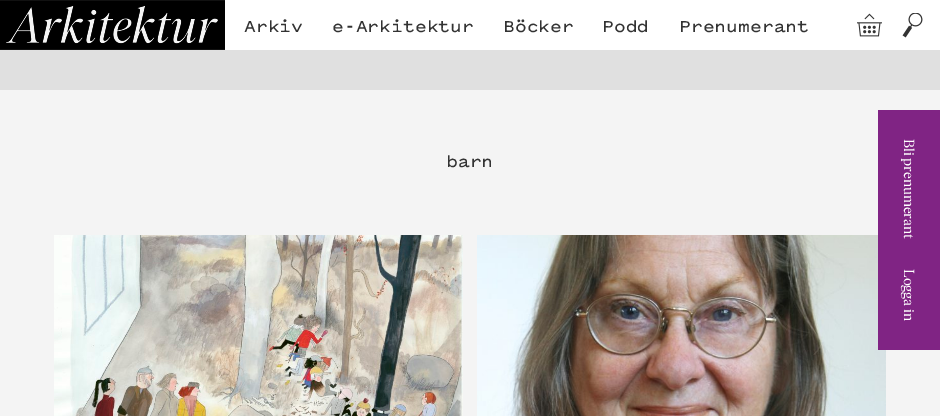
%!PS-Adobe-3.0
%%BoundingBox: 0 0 940 416
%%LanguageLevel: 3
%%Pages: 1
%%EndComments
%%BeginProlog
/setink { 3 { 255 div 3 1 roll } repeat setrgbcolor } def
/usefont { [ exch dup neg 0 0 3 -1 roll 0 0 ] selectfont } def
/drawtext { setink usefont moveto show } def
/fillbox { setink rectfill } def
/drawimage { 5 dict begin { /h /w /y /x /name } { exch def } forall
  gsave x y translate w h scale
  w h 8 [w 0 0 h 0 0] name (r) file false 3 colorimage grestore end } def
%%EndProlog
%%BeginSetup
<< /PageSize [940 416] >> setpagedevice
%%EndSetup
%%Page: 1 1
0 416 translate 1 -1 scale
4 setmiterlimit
0 0 940 416 244 244 244 fillbox
(assets/img1.rgb) 0 0 225 50 drawimage
(assets/img2.rgb) 0 0 225 50 drawimage
225 0 715 50 255 255 255 fillbox
(Arkiv) 244 32 /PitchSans-SemiBold 19.25 51 51 51 drawtext
(e-Arkitektur) 332 32 /PitchSans-SemiBold 19.25 51 51 51 drawtext
(Böcker) 503 32 /PitchSans-SemiBold 19.25 51 51 51 drawtext
(Podd) 602 32 /PitchSans-SemiBold 19.25 51 51 51 drawtext
(Prenumerant) 679 32 /PitchSans-SemiBold 19.25 51 51 51 drawtext
(assets/img3.rgb) 857 13 25 24 drawimage
(assets/img4.rgb) 902 13 21 25 drawimage
(assets/img6.rgb) 477 235 409 181 drawimage
878 110 62 240 128 36 132 fillbox
/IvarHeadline-Regular 14.5 usefont
255 255 255 setink
gsave 904 139 translate 90 rotate 0 0 moveto (Bli prenumerant) show grestore
gsave 904 269 translate 90 rotate 0 0 moveto (Logga in) show grestore
0 50 940 40 224 224 224 fillbox
(barn) 446 167 /PitchSans-SemiBold 19.25 51 51 51 drawtext
(assets/img5.rgb) 54 235 409 181 drawimage
showpage
%%EOF
